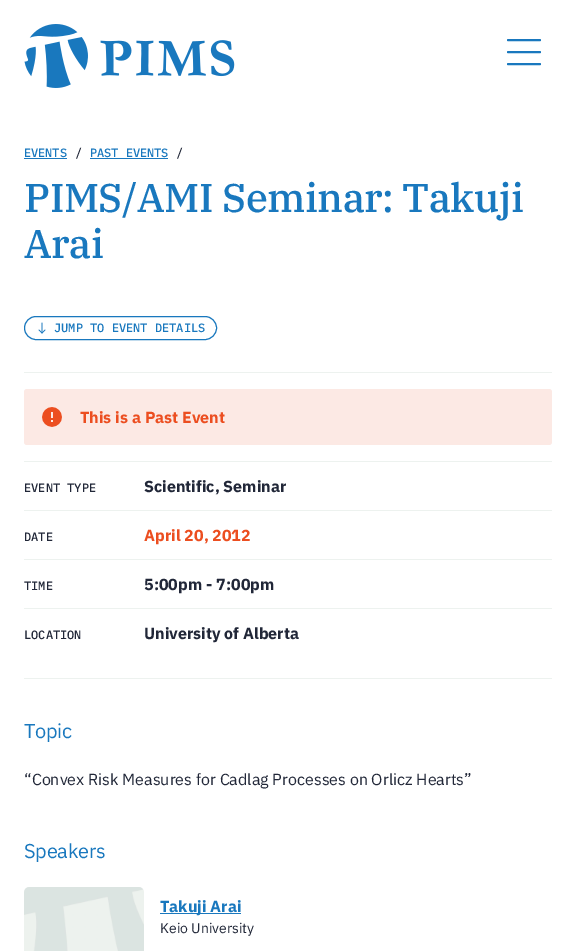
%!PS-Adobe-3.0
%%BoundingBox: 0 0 576 951
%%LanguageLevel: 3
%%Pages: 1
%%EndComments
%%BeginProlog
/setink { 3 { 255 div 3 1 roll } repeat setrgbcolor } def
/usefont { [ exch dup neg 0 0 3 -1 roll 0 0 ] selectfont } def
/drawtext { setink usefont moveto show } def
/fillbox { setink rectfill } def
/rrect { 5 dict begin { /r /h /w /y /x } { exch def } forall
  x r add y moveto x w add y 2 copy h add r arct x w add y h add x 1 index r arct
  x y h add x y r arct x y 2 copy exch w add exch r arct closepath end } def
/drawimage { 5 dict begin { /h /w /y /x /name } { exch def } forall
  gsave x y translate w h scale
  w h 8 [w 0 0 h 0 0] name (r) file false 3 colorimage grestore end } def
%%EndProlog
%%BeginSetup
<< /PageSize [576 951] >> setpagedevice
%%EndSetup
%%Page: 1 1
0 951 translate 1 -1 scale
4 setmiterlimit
0 0 576 951 255 255 255 fillbox
(assets/img1.rgb) 24 24 211 64 drawimage
25 120 190 setink
2 setlinewidth
1 setlinecap
508 40 moveto 540 40 lineto 508 52 moveto 540 52 lineto 508 64 moveto 540 64 lineto stroke
/IBMPlexMono-Medium 12 usefont
24 157 moveto -0.1 0 (EVENTS) ashow
24 158 43 1 25 120 190 fillbox
33 39 56 setink
75 157 moveto -0.1 0 (/) ashow
25 120 190 setink
90 157 moveto -0.1 0 (PAST EVENTS) ashow
90 158 78 1 25 120 190 fillbox
33 39 56 setink
176 157 moveto -0.1 0 (/) ashow
/IBMPlexSerif-Medium 40 usefont
25 120 190 setink
24 212 moveto -0.5 0 (PIMS/AMI Seminar: Takuji) ashow
24 258 moveto -0.5 0 (Arai) ashow
1 setlinewidth
0 setlinecap
24.5 316.5 192 23 11.5 rrect stroke
(assets/img2.rgb) 38 322 8 12 drawimage
(JUMP TO EVENT DETAILS) 54 332 /IBMPlexMono-Medium 12 25 120 190 drawtext
24 372 528 1 237 242 239 fillbox
24 678 528 1 237 242 239 fillbox
252 233 228 setink
24 389 528 56 3 rrect fill
(assets/img3.rgb) 42 407 20 20 drawimage
(This is a Past Event) 80 423 /IBMPlexSans-Bold 16 236 78 32 drawtext
24 461 528 1 237 242 239 fillbox
(EVENT TYPE) 24 492 /IBMPlexMono-Medium 12 33 39 56 drawtext
(Scientific, Seminar) 144 492 /IBMPlexSans-Bold 16 33 39 56 drawtext
24 510 528 1 237 242 239 fillbox
(DATE) 24 541 /IBMPlexMono-Medium 12 33 39 56 drawtext
(April 20, 2012) 144 541 /IBMPlexSans-Bold 16 236 78 32 drawtext
24 559 528 1 237 242 239 fillbox
(TIME) 24 590 /IBMPlexMono-Medium 12 33 39 56 drawtext
(5:00pm - 7:00pm) 144 590 /IBMPlexSans-Bold 16 33 39 56 drawtext
24 608 528 1 237 242 239 fillbox
(LOCATION) 24 639 /IBMPlexMono-Medium 12 33 39 56 drawtext
(University of Alberta) 144 639 /IBMPlexSans-Bold 16 33 39 56 drawtext
/IBMPlexSans-Regular 20 usefont
25 120 190 setink
24 738 moveto -0.25 0 (Topic) ashow
(“Convex Risk Measures for Cadlag Processes on Orlicz Hearts”) 24 785 /IBMPlexSans-Regular 16 33 39 56 drawtext
/IBMPlexSans-Regular 20 usefont
25 120 190 setink
24 858 moveto -0.25 0 (Speakers) ashow
(assets/img4.rgb) 24 887 120 64 drawimage
160 913 81 1 25 120 190 fillbox
(Takuji Arai) 160 912 /IBMPlexSans-Bold 16 25 120 190 drawtext
(Keio University) 160 933 /IBMPlexSans-Regular 14 33 39 56 drawtext
showpage
%%EOF
